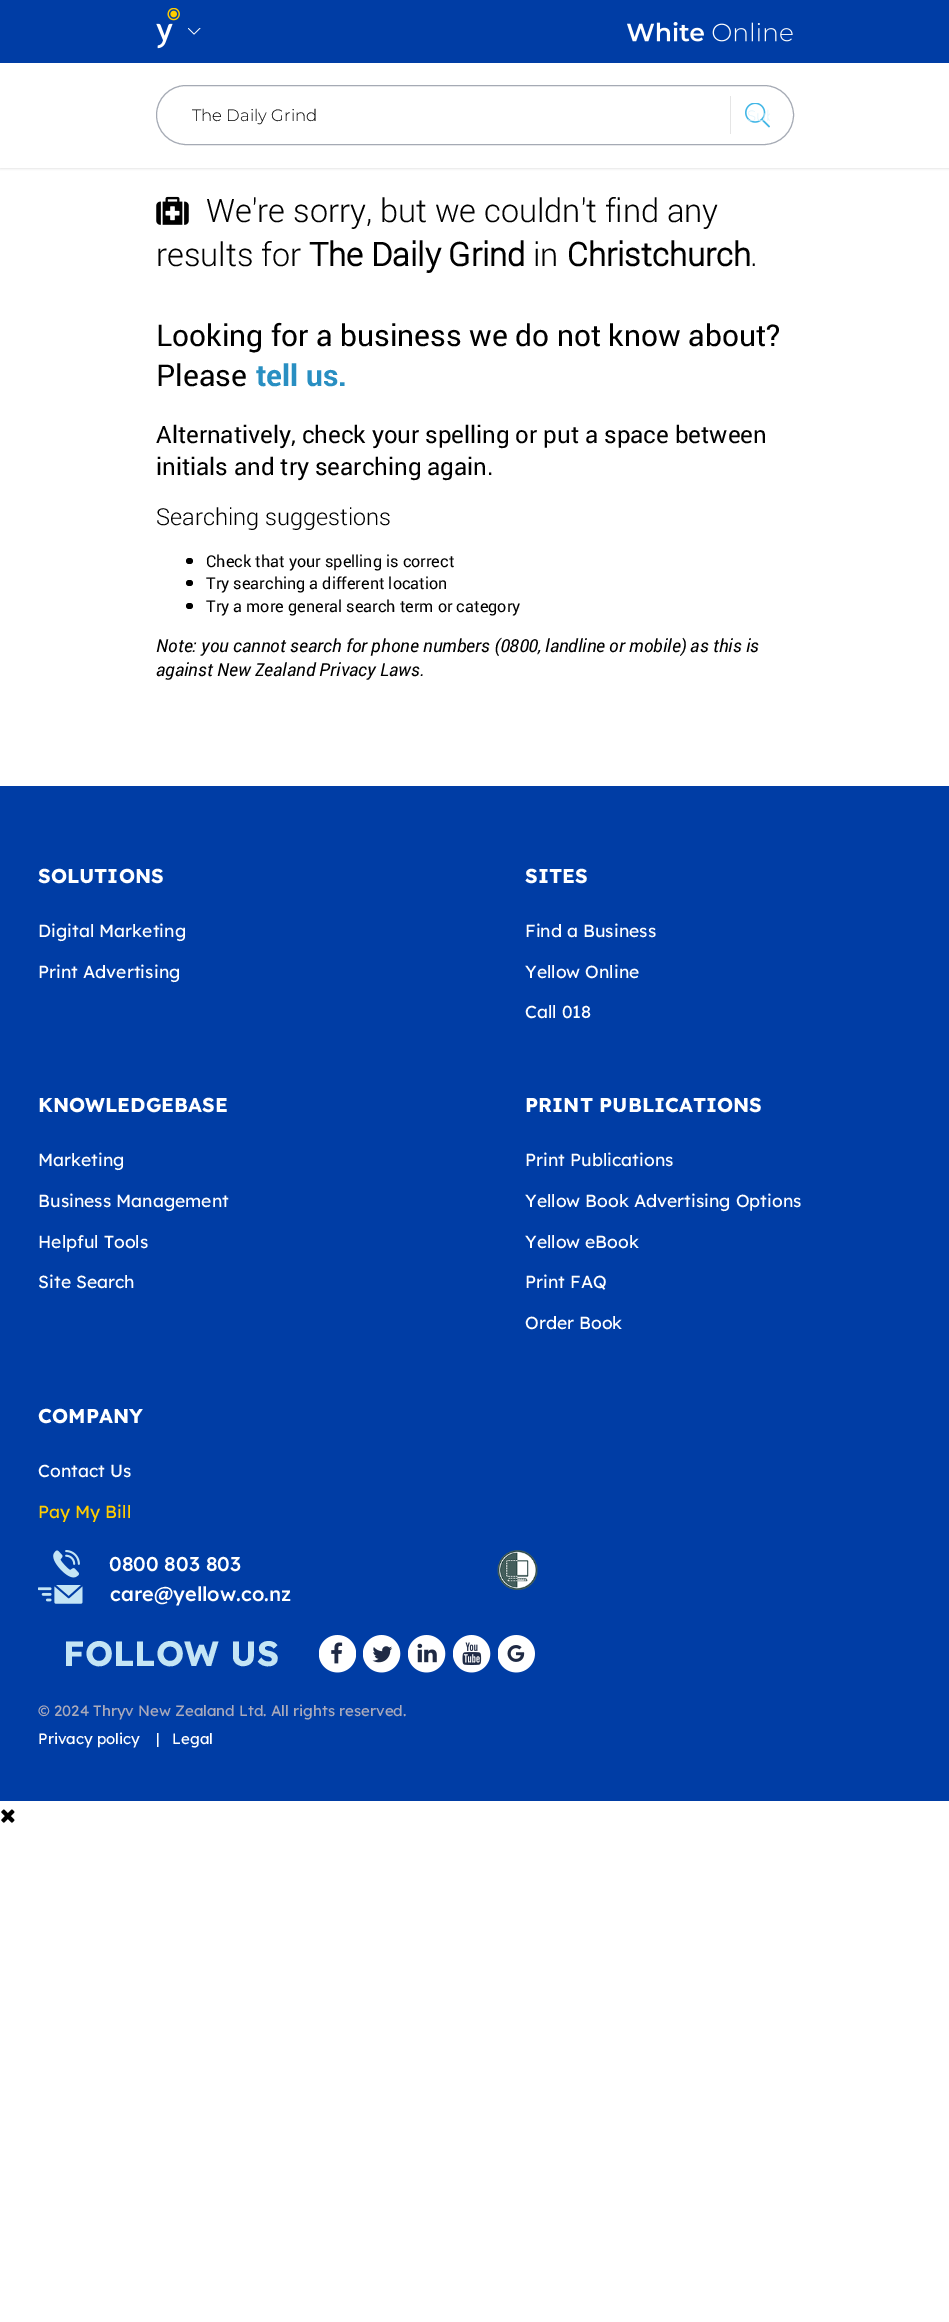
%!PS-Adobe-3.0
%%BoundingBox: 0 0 949 2322
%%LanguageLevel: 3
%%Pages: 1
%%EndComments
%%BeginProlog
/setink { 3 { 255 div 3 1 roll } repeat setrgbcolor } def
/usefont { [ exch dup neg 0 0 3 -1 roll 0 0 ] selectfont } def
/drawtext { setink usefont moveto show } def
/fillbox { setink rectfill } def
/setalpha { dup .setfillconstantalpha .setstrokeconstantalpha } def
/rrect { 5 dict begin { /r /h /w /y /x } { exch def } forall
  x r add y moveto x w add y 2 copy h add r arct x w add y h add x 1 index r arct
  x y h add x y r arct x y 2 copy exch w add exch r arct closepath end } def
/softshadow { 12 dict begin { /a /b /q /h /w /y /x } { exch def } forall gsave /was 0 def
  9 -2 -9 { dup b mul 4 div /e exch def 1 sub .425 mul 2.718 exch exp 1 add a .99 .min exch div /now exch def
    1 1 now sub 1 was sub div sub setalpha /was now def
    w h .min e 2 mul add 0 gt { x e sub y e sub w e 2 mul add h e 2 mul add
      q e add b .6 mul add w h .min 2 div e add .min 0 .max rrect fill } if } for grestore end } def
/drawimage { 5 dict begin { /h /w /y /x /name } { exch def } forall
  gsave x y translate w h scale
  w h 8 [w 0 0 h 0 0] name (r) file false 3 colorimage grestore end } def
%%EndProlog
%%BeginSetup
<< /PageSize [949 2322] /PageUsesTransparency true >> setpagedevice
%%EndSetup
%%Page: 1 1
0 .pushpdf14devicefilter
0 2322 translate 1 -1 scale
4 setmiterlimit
0 0 949 2322 255 255 255 fillbox
0 0 0 setink
0 64 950 105 0 1 0.1 softshadow
0 0 949 63 0 61 165 fillbox
(assets/img1.rgb) 156 8 24 41 drawimage
(assets/img2.rgb) 188 28 13 7 drawimage
(assets/img3.rgb) 627 22 166 20 drawimage
0 63 949 105 255 255 255 fillbox
165 170 180 setink
156.5 85.5 637 59 29.5 rrect stroke
(The Daily Grind) 192 121 /Montserrat-Light 16.5 0 0 0 drawtext
(assets/img4.rgb) 745 103 25 25 drawimage
730 96 1 38 229 229 229 fillbox
gsave
731 96 39 38 rectclip
(Sub) 747 121 /Montserrat-Light 15 222 242 251 drawtext
grestore
(assets/img5.rgb) 156 196 33 29 drawimage
(We're sorry, but we couldn't find any) 206 222 /Roboto-Light 32.5 0 0 0 drawtext
(results for) 156 266 /Roboto-Light 32.5 0 0 0 drawtext
(The Daily Grind) 309 266 /Roboto-Bold 32.5 0 0 0 drawtext
(in) 533 266 /Roboto-Light 32.5 0 0 0 drawtext
(Christchurch) 567 266 /Roboto-Bold 32.5 0 0 0 drawtext
(.) 750 266 /Roboto-Light 32.5 0 0 0 drawtext
(Looking for a business we do not know about?) 156 346 /Roboto-Regular 30 0 0 0 drawtext
(Please) 156 386 /Roboto-Regular 30 0 0 0 drawtext
(tell us.) 256 386 /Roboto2-Bold 30 41 143 194 drawtext
(Alternatively, check your spelling or put a space between) 156 443 /Roboto-Regular 24 0 0 0 drawtext
(initials and try searching again.) 156 475 /Roboto-Regular 24 0 0 0 drawtext
(Searching suggestions) 156 525 /Roboto-Light 23.4 0 0 0 drawtext
186 558 7 6 3 rrect fill
(Check that your spelling is correct) 206 567 /Roboto-Regular 16.25 0 0 0 drawtext
186 580 7 6 3 rrect fill
(Try searching a different location) 206 589 /Roboto-Regular 16.25 0 0 0 drawtext
186 603 7 6 3 rrect fill
(Try a more general search term or category) 206 612 /Roboto-Regular 16.25 0 0 0 drawtext
(Note: you cannot search for phone numbers \(0800, landline or mobile\) as this is) 156 652 /Roboto-Italic 17.9 0 0 0 drawtext
(against New Zealand Privacy Laws.) 156 676 /Roboto-Italic 17.9 0 0 0 drawtext
0 786 949 1015 0 61 165 fillbox
(SOLUTIONS) 38 883 /LexendDeca-Bold 20 255 255 255 drawtext
(Digital Marketing) 38 937 /LexendDeca-Regular 17.5 255 255 255 drawtext
(Print Advertising) 38 978 /LexendDeca-Regular 17.5 255 255 255 drawtext
(SITES) 525 883 /LexendDeca-Bold 20 255 255 255 drawtext
(Find a Business) 525 937 /LexendDeca-Regular 17.5 255 255 255 drawtext
(Yellow Online) 525 978 /LexendDeca-Regular 17.5 255 255 255 drawtext
(Call 018) 525 1018 /LexendDeca-Regular 17.5 255 255 255 drawtext
(KNOWLEDGEBASE) 38 1112 /LexendDeca-Bold 20 255 255 255 drawtext
(Marketing) 38 1166 /LexendDeca-Regular 17.5 255 255 255 drawtext
(Business Management) 38 1207 /LexendDeca-Regular 17.5 255 255 255 drawtext
(Helpful Tools) 38 1248 /LexendDeca-Regular 17.5 255 255 255 drawtext
(Site Search) 38 1288 /LexendDeca-Regular 17.5 255 255 255 drawtext
(PRINT PUBLICATIONS) 525 1112 /LexendDeca-Bold 20 255 255 255 drawtext
(Print Publications) 525 1166 /LexendDeca-Regular 17.5 255 255 255 drawtext
(Yellow Book Advertising Options) 525 1207 /LexendDeca-Regular 17.5 255 255 255 drawtext
(Yellow eBook) 525 1248 /LexendDeca-Regular 17.5 255 255 255 drawtext
(Print FAQ) 525 1288 /LexendDeca-Regular 17.5 255 255 255 drawtext
(Order Book) 525 1329 /LexendDeca-Regular 17.5 255 255 255 drawtext
(COMPANY) 38 1423 /LexendDeca-Bold 20 255 255 255 drawtext
(Contact Us) 38 1477 /LexendDeca-Regular 17.5 255 255 255 drawtext
(Pay My Bill) 38 1518 /LexendDeca-Regular 17.5 255 205 0 drawtext
(assets/img6.rgb) 53 1550 27 28 drawimage
(0800 803 803) 109 1571 /LexendDeca-Medium 20 255 255 255 drawtext
(assets/img7.rgb) 38 1585 45 19 drawimage
(care@yellow.co.nz) 110 1601 /LexendDeca-Medium 20 255 255 255 drawtext
(assets/img8.rgb) 497 1550 41 40 drawimage
(FOLLOW US) 63 1666 /LexendDeca-Bold 35 196 229 245 drawtext
(assets/img9.rgb) 319 1635 37 38 drawimage
(assets/img10.rgb) 363 1635 38 38 drawimage
(assets/img11.rgb) 408 1635 38 38 drawimage
(assets/img12.rgb) 453 1635 38 38 drawimage
(assets/img13.rgb) 498 1635 37 38 drawimage
(© 2024 Thryv New Zealand Ltd. All rights reserved.) 38 1716 /LexendDeca-Regular 15 170 170 187 drawtext
(Privacy policy) 38 1744 /LexendDeca-Regular 15 255 255 255 drawtext
(|) 156 1744 /LexendDeca-Regular 15 255 255 255 drawtext
(Legal) 172 1744 /LexendDeca-Regular 15 255 255 255 drawtext
(assets/img14.rgb) 1 1809 14 14 drawimage
.poppdf14devicefilter showpage
%%EOF
